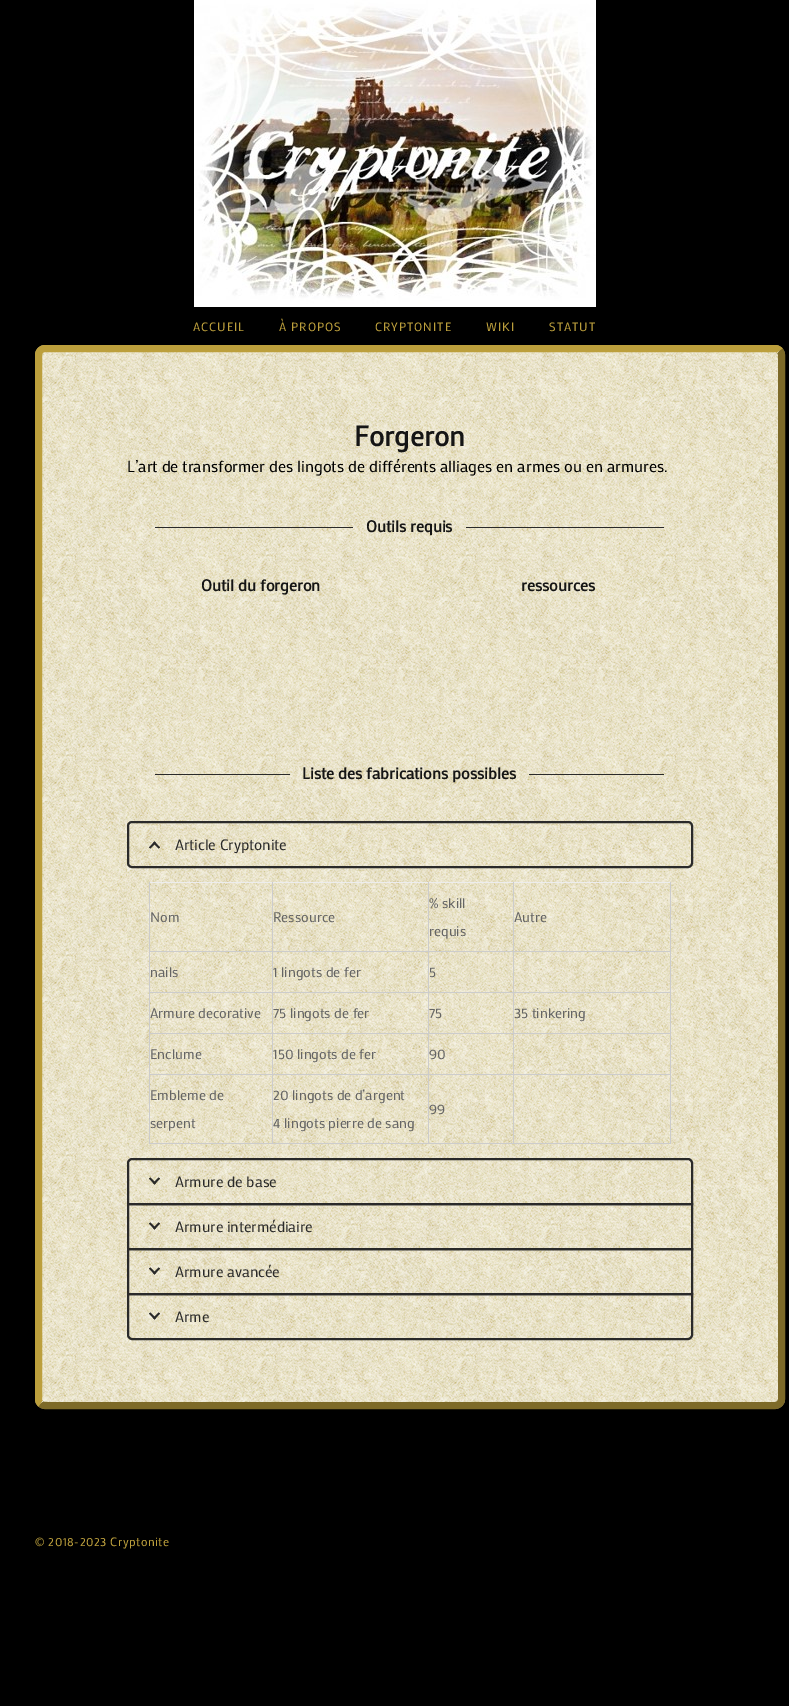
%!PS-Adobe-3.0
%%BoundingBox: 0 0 789 1706
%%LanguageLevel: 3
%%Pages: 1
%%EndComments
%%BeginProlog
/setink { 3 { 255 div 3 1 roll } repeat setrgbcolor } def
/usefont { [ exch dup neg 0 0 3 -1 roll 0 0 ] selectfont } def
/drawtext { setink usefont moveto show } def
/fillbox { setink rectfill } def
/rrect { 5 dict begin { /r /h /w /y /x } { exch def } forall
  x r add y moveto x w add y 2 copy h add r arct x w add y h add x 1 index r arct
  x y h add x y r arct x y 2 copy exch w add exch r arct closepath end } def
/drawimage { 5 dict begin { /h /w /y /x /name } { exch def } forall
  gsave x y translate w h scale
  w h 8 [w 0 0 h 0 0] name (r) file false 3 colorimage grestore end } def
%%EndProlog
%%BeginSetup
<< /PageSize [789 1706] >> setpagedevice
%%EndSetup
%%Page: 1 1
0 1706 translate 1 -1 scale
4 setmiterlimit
0 0 789 1706 0 0 0 fillbox
(assets/img1.rgb) 194 0 402 307 drawimage
/Mako-Regular 12 usefont
188 159 60 setink
193 331 moveto 1 0 (ACCUEIL) ashow
279 331 moveto 1 0 (À PROPOS) ashow
375 331 moveto 1 0 (CRYPTONITE) ashow
486 331 moveto 1 0 (WIKI) ashow
549 331 moveto 1 0 (STATUT) ashow
(assets/img2.rgb) 35 345 750 1064 drawimage
125 106 40 setink
7 setlinewidth
779.5 350.5 moveto 781 351.5 781.5 353.5 781.5 355 curveto 781.5 1399 lineto 781.5 1400.5 781 1402.5 779.5 1403.5 curveto 778.5 1405 776.5 1405.5 775 1405.5 curveto 45 1405.5 lineto 43.5 1405.5 41.5 1405 40.5 1403.5 curveto stroke
188 159 60 setink
40.5 1403.5 moveto 39 1402.5 38.5 1400.5 38.5 1399 curveto 38.5 355 lineto 38.5 353.5 39 351.5 40.5 350.5 curveto 41.5 349 43.5 348.5 45 348.5 curveto 775 348.5 lineto 776.5 348.5 778.5 349 779.5 350.5 curveto stroke
(Forgeron) 354 446 /Mako-Bold 28 21 21 21 drawtext
(L’art de transformer des lingots de différents alliages en armes ou en armures.) 127 472 /Mako-Regular 16 0 0 0 drawtext
155 527 198 1 42 42 42 fillbox
(Outils requis) 366 532 /Mako-Bold 16 21 21 21 drawtext
466 527 198 1 42 42 42 fillbox
(Outil du forgeron) 201 591 /Mako-Bold 16 21 21 21 drawtext
(ressources) 521 591 /Mako-Bold 16 21 21 21 drawtext
155 774 135 1 42 42 42 fillbox
(Liste des fabrications possibles) 302 779 /Mako-Bold 16 21 21 21 drawtext
529 774 135 1 42 42 42 fillbox
(assets/img3.rgb) 127 821 566 519 drawimage
2 setlinewidth
128 822 564 45 4 rrect stroke
150.5 848.5 moveto 149 847.5 lineto 154.5 841.5 lineto 156 843 lineto closepath fill
158.5 848.5 moveto 153 843 lineto 154.5 841.5 lineto 160 847.5 lineto closepath fill
(Article Cryptonite) 175 850 /Mako-Regular 15 42 42 42 drawtext
149 882 522 1 237 237 237 fillbox
670 951 1 193 204 204 204 fillbox
670 882 1 70 204 204 204 fillbox
513 1143 158 1 204 204 204 fillbox
513 1074 1 70 204 204 204 fillbox
513 1074 158 1 204 204 204 fillbox
513 1033 1 42 204 204 204 fillbox
513 1033 158 1 204 204 204 fillbox
513 992 1 42 204 204 204 fillbox
513 992 158 1 204 204 204 fillbox
513 951 1 42 204 204 204 fillbox
513 951 158 1 204 204 204 fillbox
513 882 1 70 204 204 204 fillbox
428 1143 86 1 204 204 204 fillbox
428 1074 1 70 204 204 204 fillbox
428 1074 86 1 204 204 204 fillbox
428 1033 1 42 204 204 204 fillbox
428 1033 86 1 204 204 204 fillbox
428 992 1 42 204 204 204 fillbox
428 992 86 1 204 204 204 fillbox
428 951 1 42 204 204 204 fillbox
428 951 86 1 204 204 204 fillbox
428 882 1 70 204 204 204 fillbox
272 1143 157 1 204 204 204 fillbox
272 1074 1 70 204 204 204 fillbox
272 1074 157 1 204 204 204 fillbox
272 1033 1 42 204 204 204 fillbox
272 1033 157 1 204 204 204 fillbox
272 992 1 42 204 204 204 fillbox
272 992 157 1 204 204 204 fillbox
272 951 1 42 204 204 204 fillbox
272 951 157 1 204 204 204 fillbox
272 882 1 70 204 204 204 fillbox
149 1143 124 1 204 204 204 fillbox
149 1074 1 70 204 204 204 fillbox
149 1074 124 1 204 204 204 fillbox
149 1033 1 42 204 204 204 fillbox
149 1033 124 1 204 204 204 fillbox
149 992 1 42 204 204 204 fillbox
149 992 124 1 204 204 204 fillbox
149 951 1 42 204 204 204 fillbox
149 951 124 1 204 204 204 fillbox
149 882 1 70 204 204 204 fillbox
(Nom) 150 922 /Mako-Regular 14 101 101 101 drawtext
(Ressource) 273 922 /Mako-Regular 14 101 101 101 drawtext
(% skill) 429 908 /Mako-Regular 14 101 101 101 drawtext
(requis) 429 936 /Mako-Regular 14 101 101 101 drawtext
(Autre) 514 922 /Mako-Regular 14 101 101 101 drawtext
(nails) 150 977 /Mako-Regular 14 101 101 101 drawtext
(1 lingots de fer) 273 977 /Mako-Regular 14 101 101 101 drawtext
(5) 429 977 /Mako-Regular 14 101 101 101 drawtext
(Armure decorative) 150 1018 /Mako-Regular 14 101 101 101 drawtext
(75 lingots de fer) 273 1018 /Mako-Regular 14 101 101 101 drawtext
(75) 429 1018 /Mako-Regular 14 101 101 101 drawtext
(35 tinkering) 514 1018 /Mako-Regular 14 101 101 101 drawtext
(Enclume) 150 1059 /Mako-Regular 14 101 101 101 drawtext
(150 lingots de fer) 273 1059 /Mako-Regular 14 101 101 101 drawtext
(90) 429 1059 /Mako-Regular 14 101 101 101 drawtext
(Embleme de) 150 1100 /Mako-Regular 14 101 101 101 drawtext
(serpent) 150 1128 /Mako-Regular 14 101 101 101 drawtext
(20 lingots de d’argent) 273 1100 /Mako-Regular 14 101 101 101 drawtext
(4 lingots pierre de sang) 273 1128 /Mako-Regular 14 101 101 101 drawtext
(99) 429 1114 /Mako-Regular 14 101 101 101 drawtext
42 42 42 setink
132 1159 moveto 688 1159 lineto 690 1159 692 1161 692 1163 curveto 692 1204 lineto 128 1204 lineto 128 1163 lineto 128 1161 130 1159 132 1159 curveto closepath stroke
158.5 1177.5 moveto 160 1178.5 lineto 154.5 1184.5 lineto 153 1183 lineto closepath fill
150.5 1177.5 moveto 156 1183 lineto 154.5 1184.5 lineto 149 1178.5 lineto closepath fill
(Armure de base) 175 1187 /Mako-Regular 15 42 42 42 drawtext
128 1204 564 45 rectstroke
158.5 1222.5 moveto 160 1223.5 lineto 154.5 1229.5 lineto 153 1228 lineto closepath fill
150.5 1222.5 moveto 156 1228 lineto 154.5 1229.5 lineto 149 1223.5 lineto closepath fill
(Armure intermédiaire) 175 1232 /Mako-Regular 15 42 42 42 drawtext
128 1249 564 45 rectstroke
158.5 1267.5 moveto 160 1268.5 lineto 154.5 1274.5 lineto 153 1273 lineto closepath fill
150.5 1267.5 moveto 156 1273 lineto 154.5 1274.5 lineto 149 1268.5 lineto closepath fill
(Armure avancée) 175 1277 /Mako-Regular 15 42 42 42 drawtext
128 1294 moveto 692 1294 lineto 692 1335 lineto 692 1337 690 1339 688 1339 curveto 132 1339 lineto 130 1339 128 1337 128 1335 curveto closepath stroke
158.5 1312.5 moveto 160 1313.5 lineto 154.5 1319.5 lineto 153 1318 lineto closepath fill
150.5 1312.5 moveto 156 1318 lineto 154.5 1319.5 lineto 149 1313.5 lineto closepath fill
(Arme) 175 1322 /Mako-Regular 15 42 42 42 drawtext
/Mako-Regular 12 usefont
188 159 60 setink
35 1546 moveto 0.5 0 (© 2018-2023 Cryptonite) ashow
showpage
%%EOF
